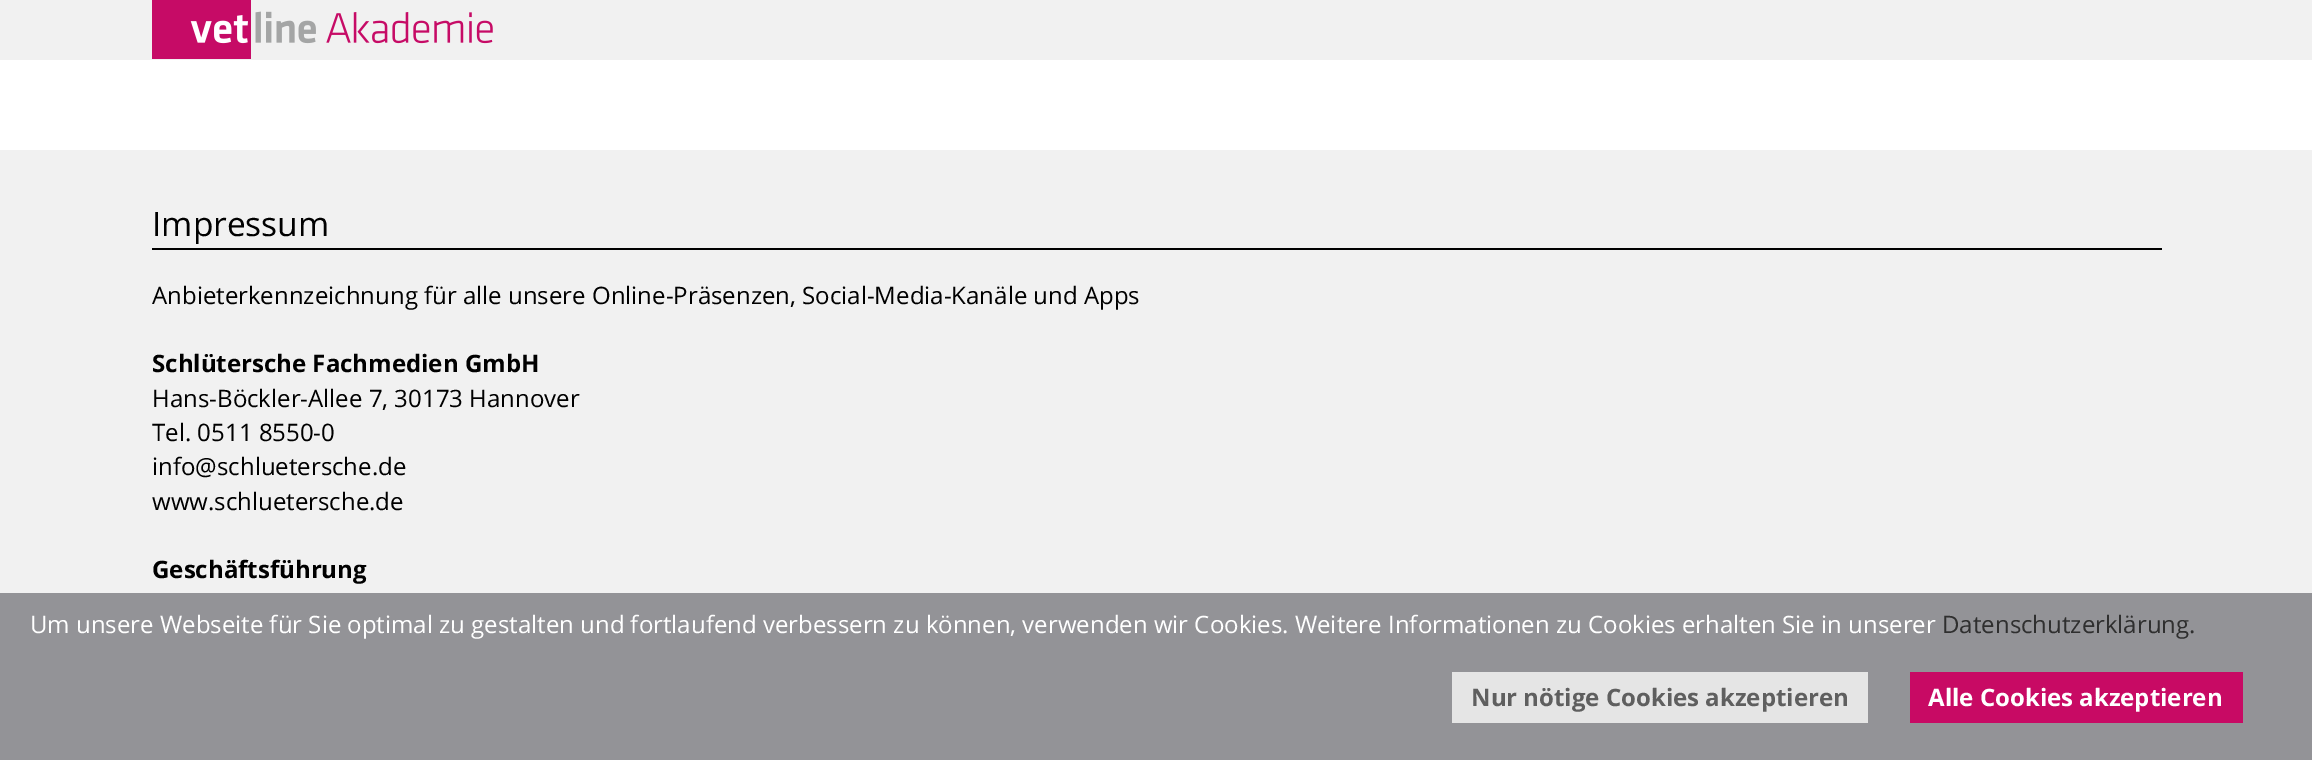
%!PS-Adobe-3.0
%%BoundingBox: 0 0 2312 760
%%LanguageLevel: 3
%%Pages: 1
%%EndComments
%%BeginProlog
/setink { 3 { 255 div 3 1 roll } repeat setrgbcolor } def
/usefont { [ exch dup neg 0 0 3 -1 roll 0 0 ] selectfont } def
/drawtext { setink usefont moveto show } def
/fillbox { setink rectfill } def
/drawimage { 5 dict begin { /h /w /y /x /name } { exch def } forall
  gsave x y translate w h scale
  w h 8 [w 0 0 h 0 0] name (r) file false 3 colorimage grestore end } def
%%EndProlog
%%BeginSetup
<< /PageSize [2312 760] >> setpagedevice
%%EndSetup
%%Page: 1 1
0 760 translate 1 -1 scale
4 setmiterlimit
0 0 2312 760 241 241 241 fillbox
(assets/img1.rgb) 152 0 341 59 drawimage
0 60 2312 90 255 255 255 fillbox
152 248 2010 2 0 0 0 fillbox
(Impressum) 152 236 /OpenSans-Regular 33.5 0 0 0 drawtext
(Anbieterkennzeichnung für alle unsere Online-Präsenzen, Social-Media-Kanäle und Apps) 152 304 /OpenSans-Regular 24 0 0 0 drawtext
(Schlütersche Fachmedien GmbH) 152 372 /OpenSans-Bold 24 0 0 0 drawtext
(Hans-Böckler-Allee 7, 30173 Hannover) 152 407 /OpenSans-Regular 24 0 0 0 drawtext
(Tel. 0511 8550-0) 152 441 /OpenSans-Regular 24 0 0 0 drawtext
(info@schluetersche.de) 152 475 /OpenSans-Regular 24 0 0 0 drawtext
(www.schluetersche.de) 152 510 /OpenSans-Regular 24 0 0 0 drawtext
(Geschäftsführung) 152 578 /OpenSans-Bold 24 0 0 0 drawtext
0 593 2312 167 147 147 151 fillbox
(Um unsere Webseite für Sie optimal zu gestalten und fortlaufend verbessern zu können, verwenden wir Cookies. Weitere Informationen zu Cookies erhalten Sie in unserer) 30 633 /OpenSans-Regular 24 255 255 255 drawtext
(Datenschutzerklärung.) 1942 633 /OpenSans-Regular 24 47 47 47 drawtext
1452 672 416 51 229 229 229 fillbox
(Nur nötige Cookies akzeptieren) 1471 706 /OpenSans-Bold 24 95 95 95 drawtext
1910 672 333 51 200 10 100 fillbox
(Alle Cookies akzeptieren) 1928 706 /OpenSans-Bold 24 255 255 255 drawtext
showpage
%%EOF
